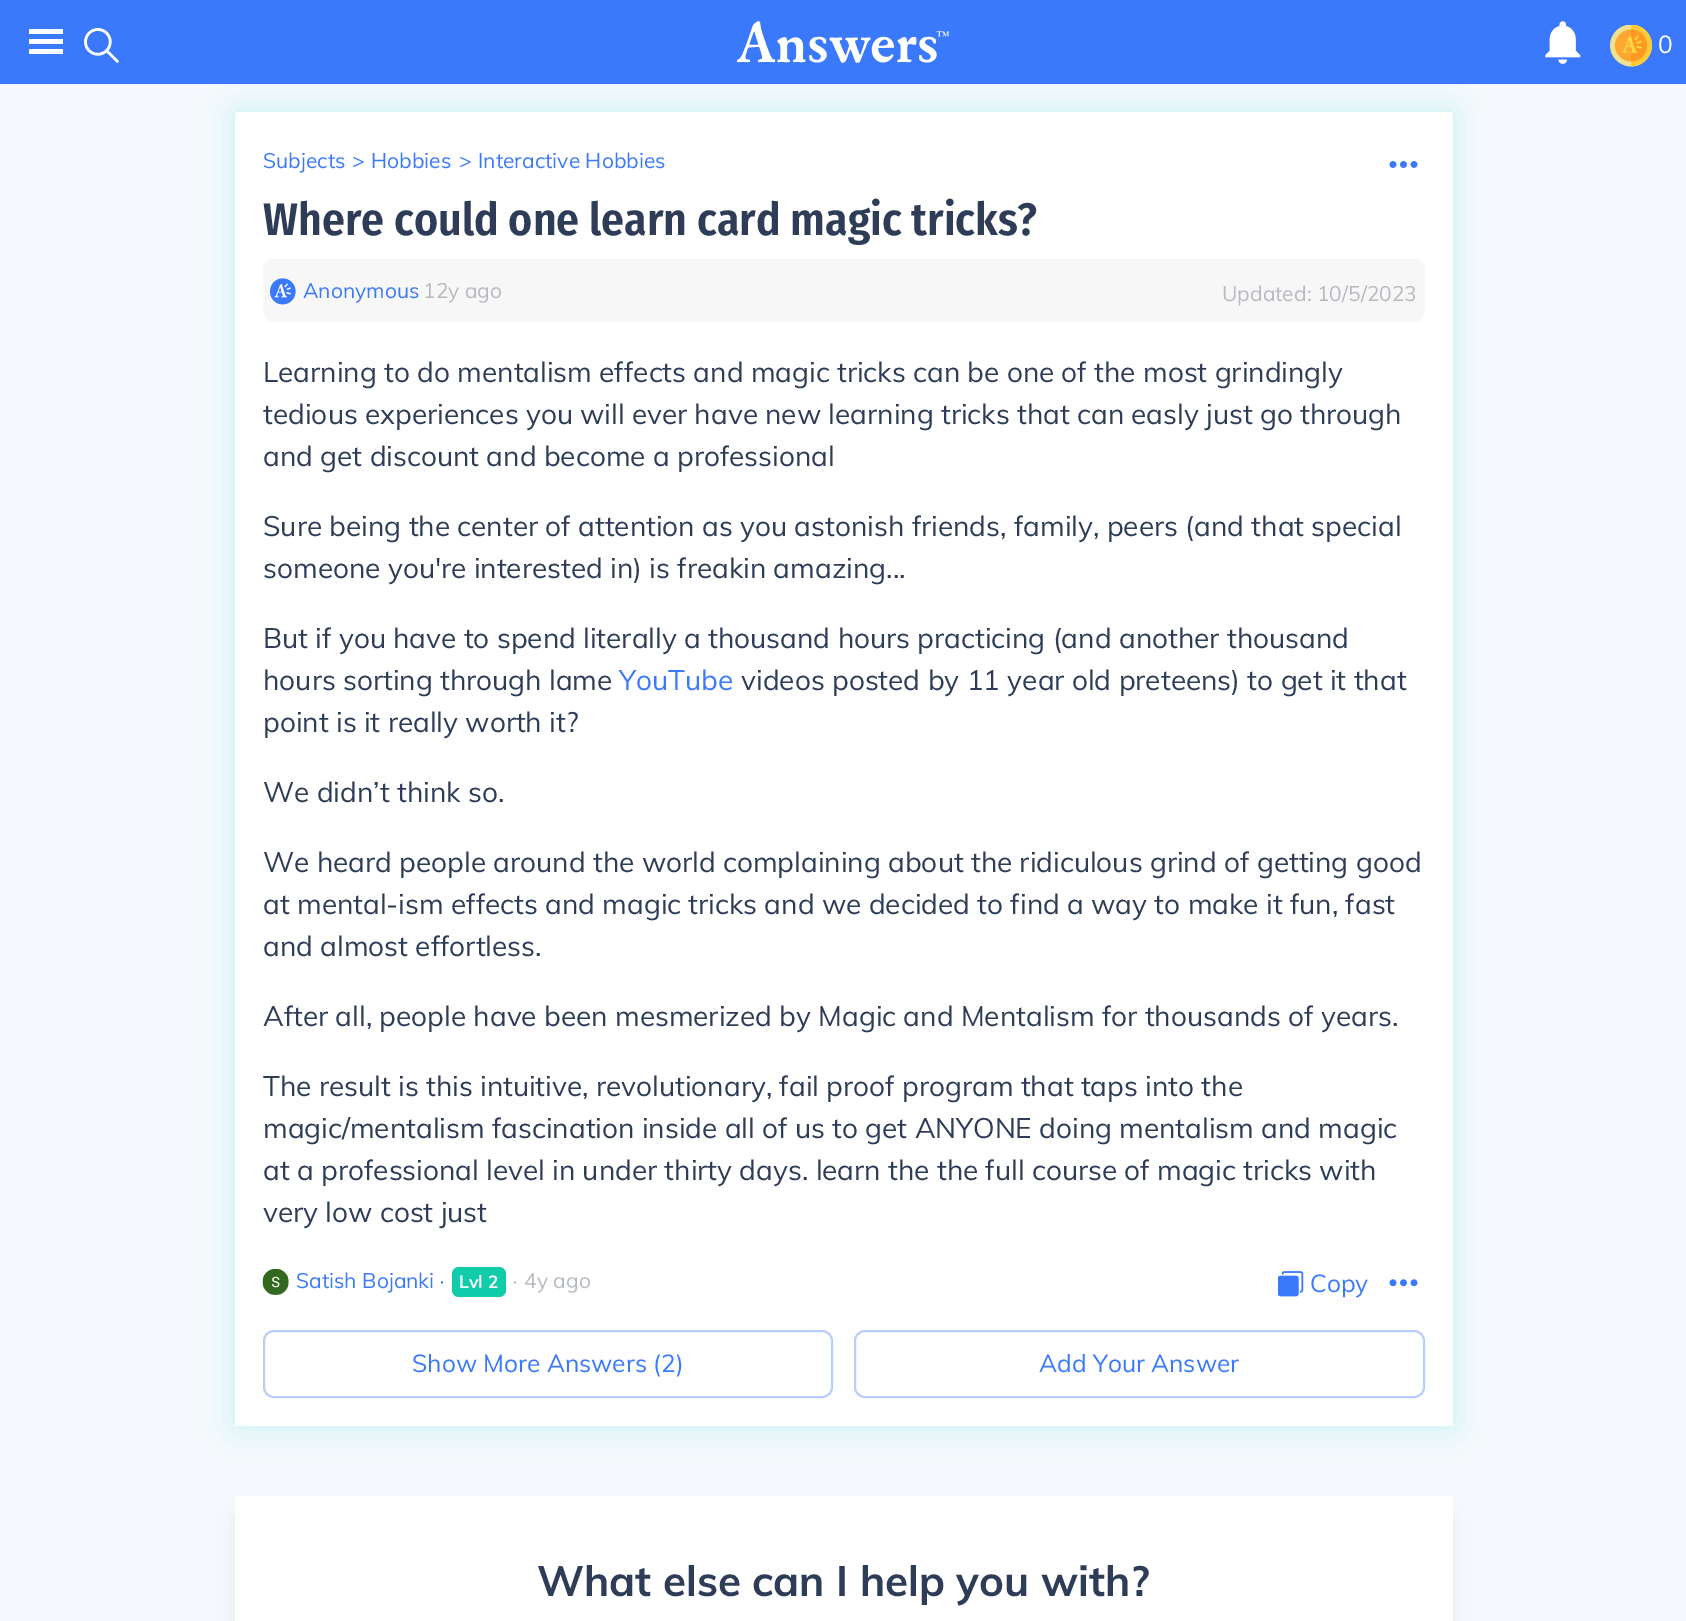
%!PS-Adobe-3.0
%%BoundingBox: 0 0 1686 1621
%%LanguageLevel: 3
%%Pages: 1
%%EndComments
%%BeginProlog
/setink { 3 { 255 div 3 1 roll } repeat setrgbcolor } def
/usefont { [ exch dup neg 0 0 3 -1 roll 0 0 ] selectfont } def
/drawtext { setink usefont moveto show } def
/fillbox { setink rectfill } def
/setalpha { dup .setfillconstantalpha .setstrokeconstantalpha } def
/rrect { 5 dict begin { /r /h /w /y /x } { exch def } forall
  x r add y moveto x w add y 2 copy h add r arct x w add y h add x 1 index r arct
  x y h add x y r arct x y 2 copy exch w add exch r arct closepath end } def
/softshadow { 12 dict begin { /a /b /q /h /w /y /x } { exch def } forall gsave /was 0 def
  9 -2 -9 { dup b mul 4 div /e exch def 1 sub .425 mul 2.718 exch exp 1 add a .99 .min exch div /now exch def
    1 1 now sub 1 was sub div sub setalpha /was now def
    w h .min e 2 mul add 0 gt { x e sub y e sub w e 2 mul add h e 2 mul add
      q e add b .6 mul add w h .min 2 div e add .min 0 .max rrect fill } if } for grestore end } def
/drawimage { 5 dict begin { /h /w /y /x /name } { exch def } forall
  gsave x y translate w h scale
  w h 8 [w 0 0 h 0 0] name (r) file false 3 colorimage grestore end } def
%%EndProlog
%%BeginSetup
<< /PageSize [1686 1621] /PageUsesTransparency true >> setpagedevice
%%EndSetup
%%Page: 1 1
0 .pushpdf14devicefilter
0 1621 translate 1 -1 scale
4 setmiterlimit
0 0 1686 1621 246 249 253 fillbox
0 205 189 setink
235 112 1218 1314 0 17.5 0.2 softshadow
0 0 1686 84 58 120 252 fillbox
29 29 34 5 255 255 255 fillbox
29 39 34 5 255 255 255 fillbox
29 49 34 5 255 255 255 fillbox
(assets/img1.rgb) 84 28 35 35 drawimage
(assets/img2.rgb) 737 21 212 42 drawimage
(assets/img3.rgb) 1545 21 36 43 drawimage
(assets/img4.rgb) 1610 25 42 42 drawimage
(0) 1658 53 /Muli-Regular 24.5 255 255 255 drawtext
235 112 1218 1314 255 255 255 fillbox
(Subjects) 263 168 /Muli-Regular 21 58 120 252 drawtext
(>) 352 168 /Muli-Regular 21 58 120 252 drawtext
(Hobbies) 371 168 /Muli-Regular 21 58 120 252 drawtext
(>) 459 168 /Muli-Regular 21 58 120 252 drawtext
(Interactive Hobbies) 478 168 /Muli-Regular 21 58 120 252 drawtext
(assets/img5.rgb) 1389 161 29 7 drawimage
(Where could one learn card magic tricks?) 263 235 /FiraSansCondensed-SemiBold 45.5 46 60 87 drawtext
247 247 247 setink
263 259 1162 63 11 rrect fill
(assets/img6.rgb) 270 278 26 27 drawimage
(Anonymous) 303 298 /Muli-Regular 21 58 120 252 drawtext
(∙) 412 298 /LiberationSans-Regular 21 182 186 192 drawtext
(12y ago) 423 298 /Muli-Regular 21 182 186 192 drawtext
(Updated: 10/5/2023) 1222 301 /Muli-Regular 21 182 186 192 drawtext
(Learning to do mentalism effects and magic tricks can be one of the most grindingly) 263 382 /Muli-Regular 28 46 60 87 drawtext
(tedious experiences you will ever have new learning tricks that can easly just go through) 263 424 /Muli-Regular 28 46 60 87 drawtext
(and get discount and become a professional) 263 466 /Muli-Regular 28 46 60 87 drawtext
(Sure being the center of attention as you astonish friends, family, peers \(and that special) 263 536 /Muli-Regular 28 46 60 87 drawtext
(someone you're interested in\) is freakin amazing...) 263 578 /Muli-Regular 28 46 60 87 drawtext
(But if you have to spend literally a thousand hours practicing \(and another thousand) 263 648 /Muli-Regular 28 46 60 87 drawtext
(hours sorting through lame) 263 690 /Muli-Regular 28 46 60 87 drawtext
(YouTube) 619 690 /Muli-Regular 28 58 120 252 drawtext
(videos posted by 11 year old preteens\) to get it that) 741 690 /Muli-Regular 28 46 60 87 drawtext
(point is it really worth it?) 263 732 /Muli-Regular 28 46 60 87 drawtext
(We didn’t think so.) 263 802 /Muli-Regular 28 46 60 87 drawtext
(We heard people around the world complaining about the ridiculous grind of getting good) 263 872 /Muli-Regular 28 46 60 87 drawtext
(at mental-ism effects and magic tricks and we decided to find a way to make it fun, fast) 263 914 /Muli-Regular 28 46 60 87 drawtext
(and almost effortless.) 263 956 /Muli-Regular 28 46 60 87 drawtext
(After all, people have been mesmerized by Magic and Mentalism for thousands of years.) 263 1026 /Muli-Regular 28 46 60 87 drawtext
(The result is this intuitive, revolutionary, fail proof program that taps into the) 263 1096 /Muli-Regular 28 46 60 87 drawtext
(magic/mentalism fascination inside all of us to get ANYONE doing mentalism and magic) 263 1138 /Muli-Regular 28 46 60 87 drawtext
(at a professional level in under thirty days. learn the the full course of magic tricks with) 263 1180 /Muli-Regular 28 46 60 87 drawtext
(very low cost just) 263 1222 /Muli-Regular 28 46 60 87 drawtext
(assets/img7.rgb) 262 1268 27 27 drawimage
(Satish Bojanki) 296 1288 /Muli-Regular 21 58 120 252 drawtext
(∙) 439 1288 /LiberationSans-Regular 21 58 120 252 drawtext
17 204 170 setink
459 1267 moveto 488 1267 lineto 488 1297 lineto 459 1297 lineto 455 1297 452 1294 452 1290 curveto 452 1274 lineto 452 1270 455 1267 459 1267 curveto closepath fill
488 1267 moveto 499 1267 lineto 503 1267 506 1270 506 1274 curveto 506 1290 lineto 506 1294 503 1297 499 1297 curveto 488 1297 lineto closepath fill
(Lvl 2) 459 1288 /Muli-Bold 17.5 255 255 255 drawtext
(∙) 512 1288 /LiberationSans-Regular 21 182 186 192 drawtext
(4y ago) 524 1288 /Muli-Regular 21 182 186 192 drawtext
(assets/img8.rgb) 1278 1271 26 26 drawimage
(Copy) 1310 1292 /Muli-Regular 24.5 58 120 252 drawtext
(assets/img9.rgb) 1389 1279 29 8 drawimage
184 206 252 setink
2 setlinewidth
264 1331 568 66 10 rrect stroke
(Show More Answers \(2\)) 412 1372 /Muli-Regular 24.5 58 120 252 drawtext
184 206 252 setink
855 1331 569 66 10 rrect stroke
(Add Your Answer) 1039 1372 /Muli-Regular 24.5 58 120 252 drawtext
0 0 0 setink
240 1519 1207 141 0 13 0.1 softshadow
235 1496 1218 125 255 255 255 fillbox
(What else can I help you with?) 537 1596 /Muli-Bold 42 46 60 87 drawtext
.poppdf14devicefilter showpage
%%EOF
